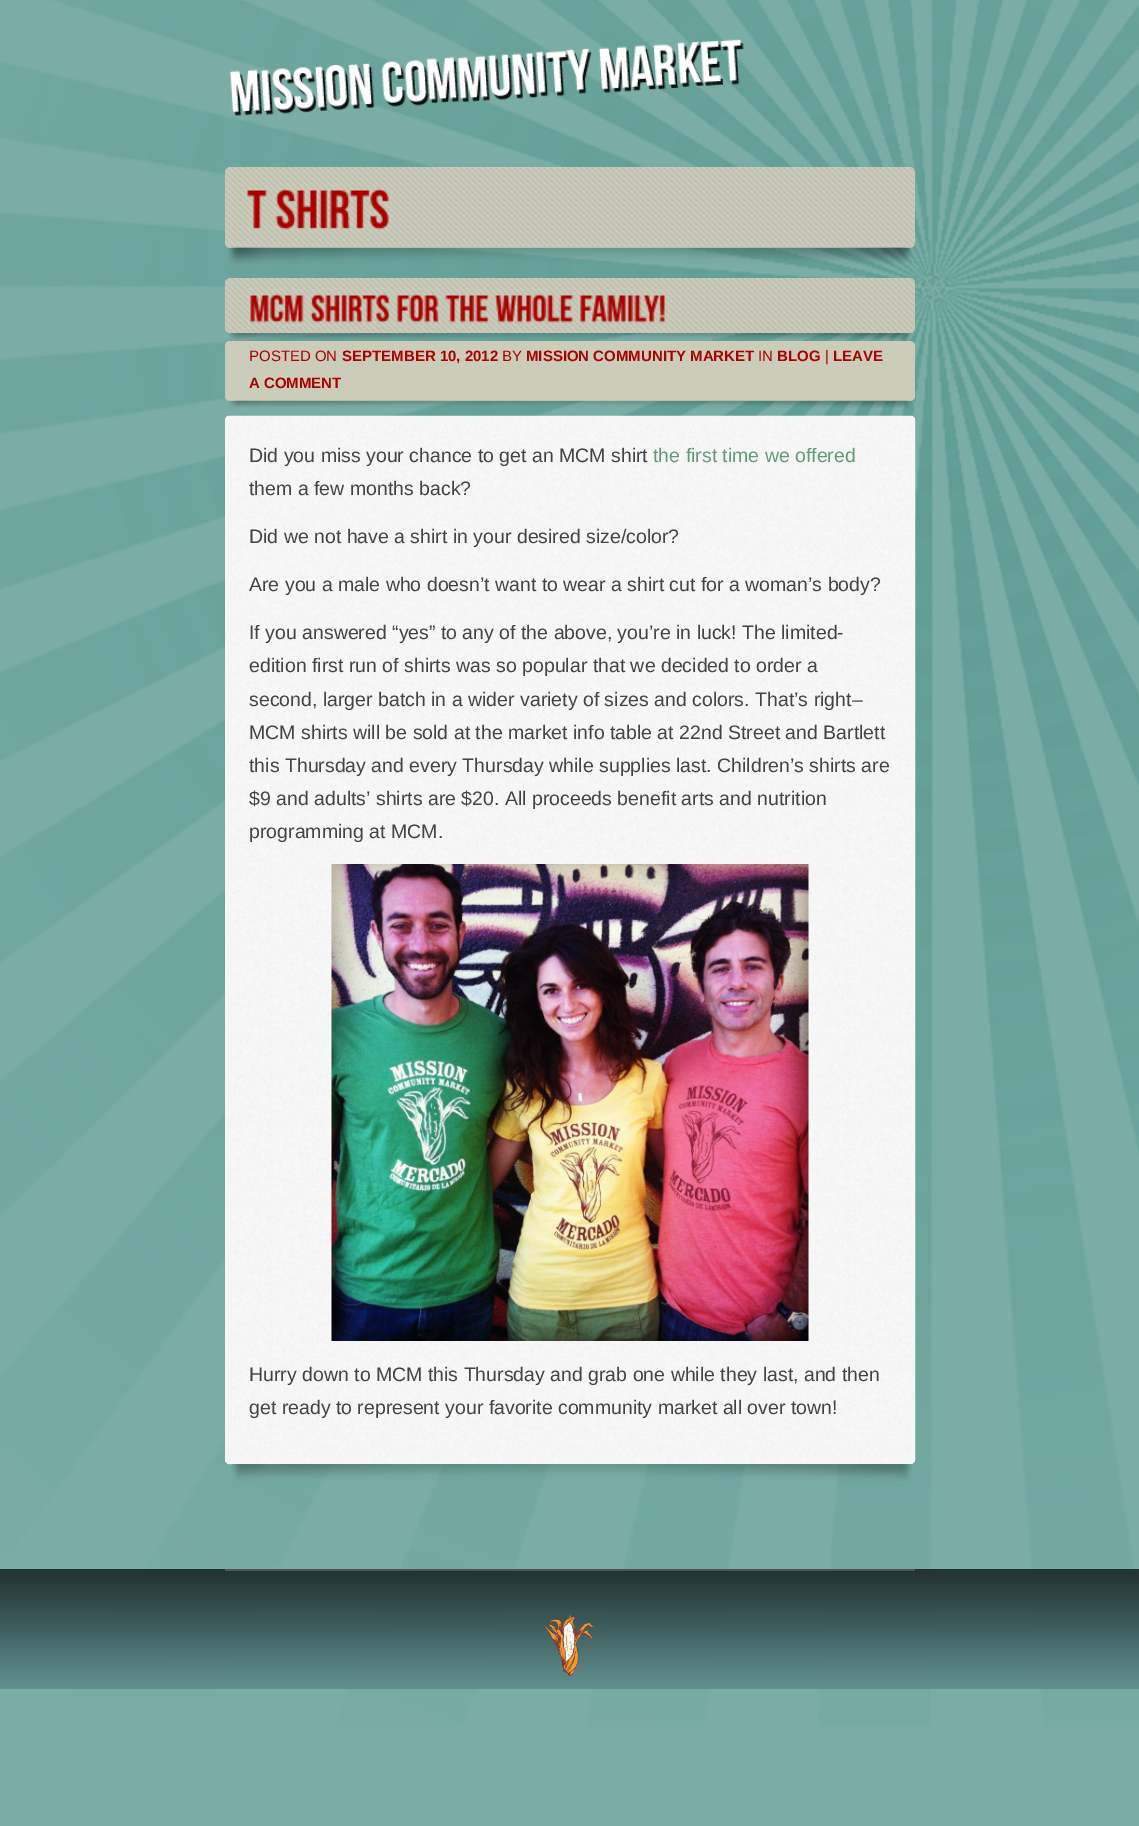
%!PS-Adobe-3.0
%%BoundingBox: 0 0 1139 1826
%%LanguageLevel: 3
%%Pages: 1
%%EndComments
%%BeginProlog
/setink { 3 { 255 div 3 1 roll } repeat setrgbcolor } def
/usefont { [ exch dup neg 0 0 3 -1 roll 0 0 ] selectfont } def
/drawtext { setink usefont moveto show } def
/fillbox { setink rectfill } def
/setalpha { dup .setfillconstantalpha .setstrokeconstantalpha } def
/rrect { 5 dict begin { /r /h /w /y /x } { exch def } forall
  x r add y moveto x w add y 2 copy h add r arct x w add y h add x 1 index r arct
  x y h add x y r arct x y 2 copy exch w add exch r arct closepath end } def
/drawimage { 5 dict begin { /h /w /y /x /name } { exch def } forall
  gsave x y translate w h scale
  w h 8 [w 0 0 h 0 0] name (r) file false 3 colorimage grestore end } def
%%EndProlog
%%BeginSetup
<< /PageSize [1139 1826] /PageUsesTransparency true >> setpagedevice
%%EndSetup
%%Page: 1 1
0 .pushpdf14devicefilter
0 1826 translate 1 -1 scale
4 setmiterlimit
0 0 1139 1826 122 173 166 fillbox
(assets/img1.rgb) 0 0 1139 1727 drawimage
(assets/img2.rgb) 229 39 515 77 drawimage
204 204 187 setink
225 167 690 81 5 rrect fill
(assets/img3.rgb) 225 167 690 80 drawimage
(assets/img4.rgb) 247 190 21 39 drawimage
(assets/img5.rgb) 275 188 114 42 drawimage
(assets/img6.rgb) 228 247 685 18 drawimage
225 278 690 55 5 rrect fill
(assets/img7.rgb) 225 278 690 55 drawimage
(assets/img8.rgb) 250 293 54 30 drawimage
(assets/img9.rgb) 310 293 81 30 drawimage
(assets/img10.rgb) 397 293 42 30 drawimage
(assets/img11.rgb) 445 295 44 28 drawimage
(assets/img12.rgb) 494 293 80 30 drawimage
(assets/img13.rgb) 580 294 85 29 drawimage
(assets/img14.rgb) 228 333 684 8 drawimage
225 341 690 60 5 rrect fill
(POSTED ON) 249 361 /LiberationSans-Regular 15 170 0 0 drawtext
(SEPTEMBER 10, 2012) 342 361 /LiberationSans-Bold 15 170 0 0 drawtext
(BY) 502 361 /LiberationSans-Regular 15 170 0 0 drawtext
(MISSION COMMUNITY MARKET) 526 361 /LiberationSans-Bold 15 170 0 0 drawtext
(IN) 758 361 /LiberationSans-Regular 15 170 0 0 drawtext
(BLOG) 777 361 /LiberationSans-Bold 15 170 0 0 drawtext
(|) 825 361 /LiberationSans-Regular 15 170 0 0 drawtext
(LEAVE) 833 361 /LiberationSans-Bold 15 170 0 0 drawtext
(A COMMENT) 249 388 /LiberationSans-Bold 15 170 0 0 drawtext
(assets/img15.rgb) 228 400 684 8 drawimage
(assets/img16.rgb) 225 415 690 1049 drawimage
246 246 246 setink
2 setlinewidth
226 417 688 1046 4 rrect stroke
(Did you miss your chance to get an MCM shirt) 249 462 /LiberationSans-Regular 19.5 68 68 68 drawtext
(the first time we offered) 653 462 /LiberationSans-Regular 19.5 102 153 119 drawtext
(them a few months back?) 249 495 /LiberationSans-Regular 19.5 68 68 68 drawtext
(Did we not have a shirt in your desired size/color?) 249 543 /LiberationSans-Regular 19.5 68 68 68 drawtext
(Are you a male who doesn’t want to wear a shirt cut for a woman’s body?) 249 591 /LiberationSans-Regular 19.5 68 68 68 drawtext
(If you answered “yes” to any of the above, you’re in luck! The limited-) 249 639 /LiberationSans-Regular 19.5 68 68 68 drawtext
(edition first run of shirts was so popular that we decided to order a) 249 672 /LiberationSans-Regular 19.5 68 68 68 drawtext
(second, larger batch in a wider variety of sizes and colors. That’s right–) 249 706 /LiberationSans-Regular 19.5 68 68 68 drawtext
(MCM shirts will be sold at the market info table at 22nd Street and Bartlett) 249 739 /LiberationSans-Regular 19.5 68 68 68 drawtext
(this Thursday and every Thursday while supplies last. Children’s shirts are) 249 772 /LiberationSans-Regular 19.5 68 68 68 drawtext
($9 and adults’ shirts are $20. All proceeds benefit arts and nutrition) 249 805 /LiberationSans-Regular 19.5 68 68 68 drawtext
(programming at MCM.) 249 838 /LiberationSans-Regular 19.5 68 68 68 drawtext
(assets/img17.rgb) 331 864 478 477 drawimage
(Hurry down to MCM this Thursday and grab one while they last, and then) 249 1381 /LiberationSans-Regular 19.5 68 68 68 drawtext
(get ready to represent your favorite community market all over town!) 249 1414 /LiberationSans-Regular 19.5 68 68 68 drawtext
(assets/img18.rgb) 231 1464 681 17 drawimage
0.95 setalpha
0 1569 1139 120 102 153 153 fillbox
1 setalpha
(assets/img19.rgb) 0 1569 1139 120 drawimage
225 1569 690 2 82 83 83 fillbox
(assets/img20.rgb) 545 1615 51 61 drawimage
.poppdf14devicefilter showpage
%%EOF
